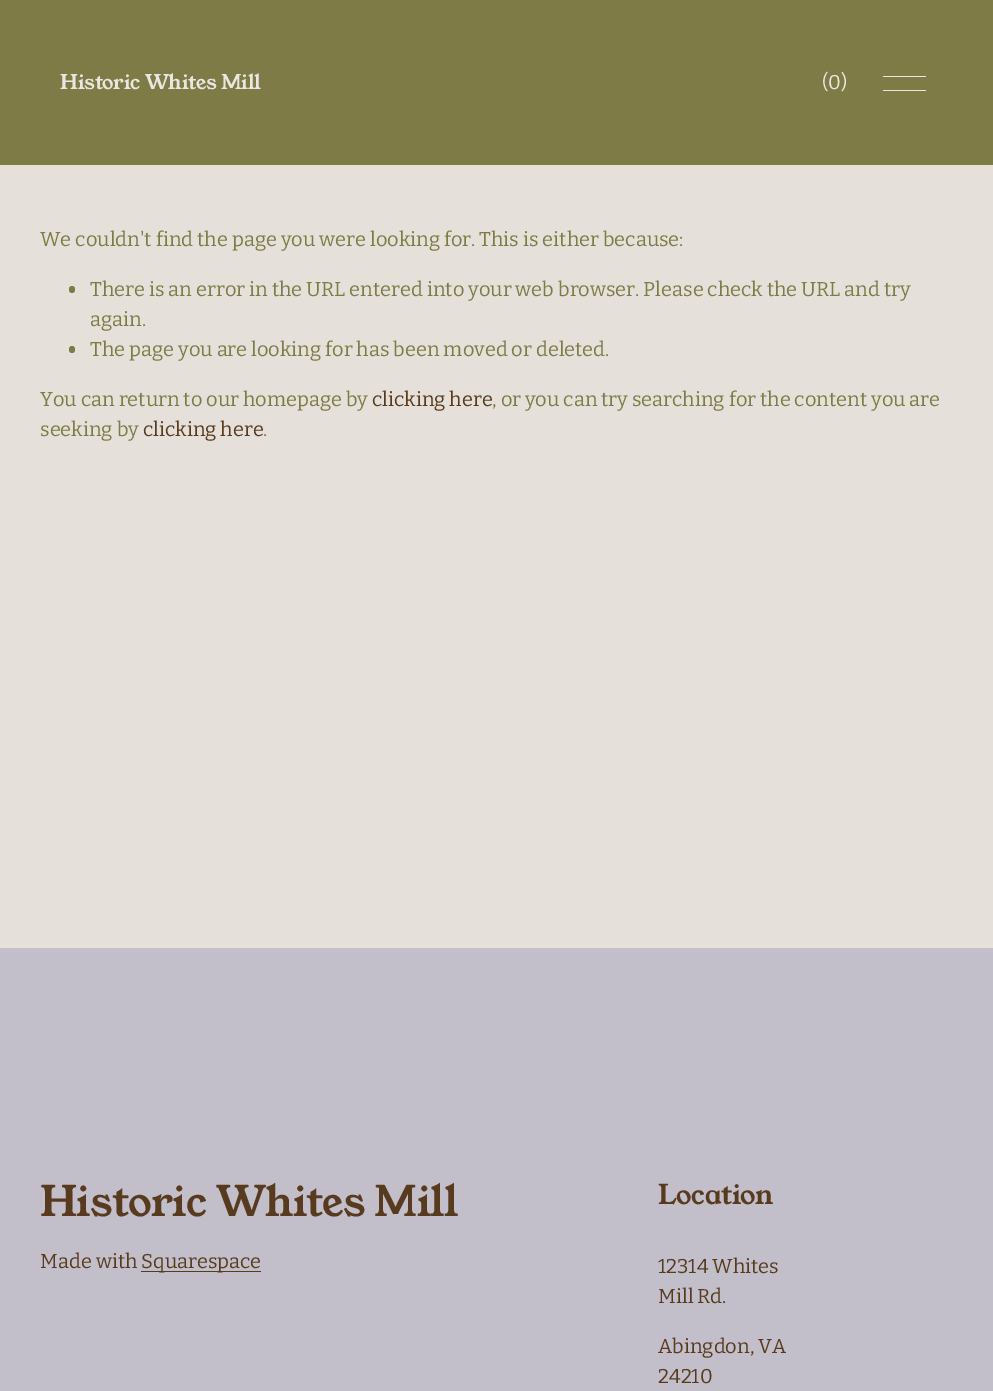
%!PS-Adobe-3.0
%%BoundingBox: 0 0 993 1391
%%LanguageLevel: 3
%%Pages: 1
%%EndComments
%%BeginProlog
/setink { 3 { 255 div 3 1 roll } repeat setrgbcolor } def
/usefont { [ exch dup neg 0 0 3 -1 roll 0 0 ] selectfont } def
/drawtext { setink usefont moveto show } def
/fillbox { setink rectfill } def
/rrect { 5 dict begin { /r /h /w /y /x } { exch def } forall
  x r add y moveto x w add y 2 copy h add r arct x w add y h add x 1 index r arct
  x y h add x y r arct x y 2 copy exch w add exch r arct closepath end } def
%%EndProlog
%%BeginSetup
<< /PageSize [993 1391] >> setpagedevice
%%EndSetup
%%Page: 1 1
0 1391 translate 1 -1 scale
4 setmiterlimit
0 0 993 1391 229 224 218 fillbox
0 0 993 165 126 123 70 fillbox
/YoungSerif-Regular 20 usefont
234 230 225 setink
60 89 moveto -0.4 0 (Historic Whites Mill) ashow
(\(0\)) 822 89 /Bitter-Regular 20 234 230 225 drawtext
883 76 43 1 234 230 225 fillbox
883 90 43 1 234 230 225 fillbox
(We couldn't find the page you were looking for. This is either because:) 40 246 /Bitter-Regular 20 126 123 70 drawtext
69 286 6 7 3 rrect fill
(There is an error in the URL entered into your web browser. Please check the URL and try) 90 296 /Bitter-Regular 20 126 123 70 drawtext
(again.) 90 326 /Bitter-Regular 20 126 123 70 drawtext
69 346 6 7 3 rrect fill
(The page you are looking for has been moved or deleted.) 90 356 /Bitter-Regular 20 126 123 70 drawtext
(You can return to our homepage by) 40 406 /Bitter-Regular 20 126 123 70 drawtext
(clicking here) 372 406 /Bitter-Regular 20 88 59 31 drawtext
(, or you can try searching for the content you are) 492 406 /Bitter-Regular 20 126 123 70 drawtext
(seeking by) 40 436 /Bitter-Regular 20 126 123 70 drawtext
(clicking here) 143 436 /Bitter-Regular 20 88 59 31 drawtext
(.) 263 436 /Bitter-Regular 20 126 123 70 drawtext
0 948 993 443 194 191 203 fillbox
/YoungSerif-Regular 41.5 usefont
88 59 31 setink
40 1216 moveto -0.8 0 (Historic Whites Mill) ashow
/YoungSerif-Regular 27 usefont
658 1204 moveto -0.5 0 (Location) ashow
(12314 Whites) 658 1273 /Bitter-Regular 20 88 59 31 drawtext
(Mill Rd.) 658 1303 /Bitter-Regular 20 88 59 31 drawtext
(Abingdon, VA) 658 1353 /Bitter-Regular 20 88 59 31 drawtext
(24210) 658 1383 /Bitter-Regular 20 88 59 31 drawtext
(Made with) 40 1268 /Bitter-Regular 20 88 59 31 drawtext
141 1271 120 1 88 59 31 fillbox
(Squarespace) 141 1268 /Bitter-Regular 20 88 59 31 drawtext
showpage
%%EOF
